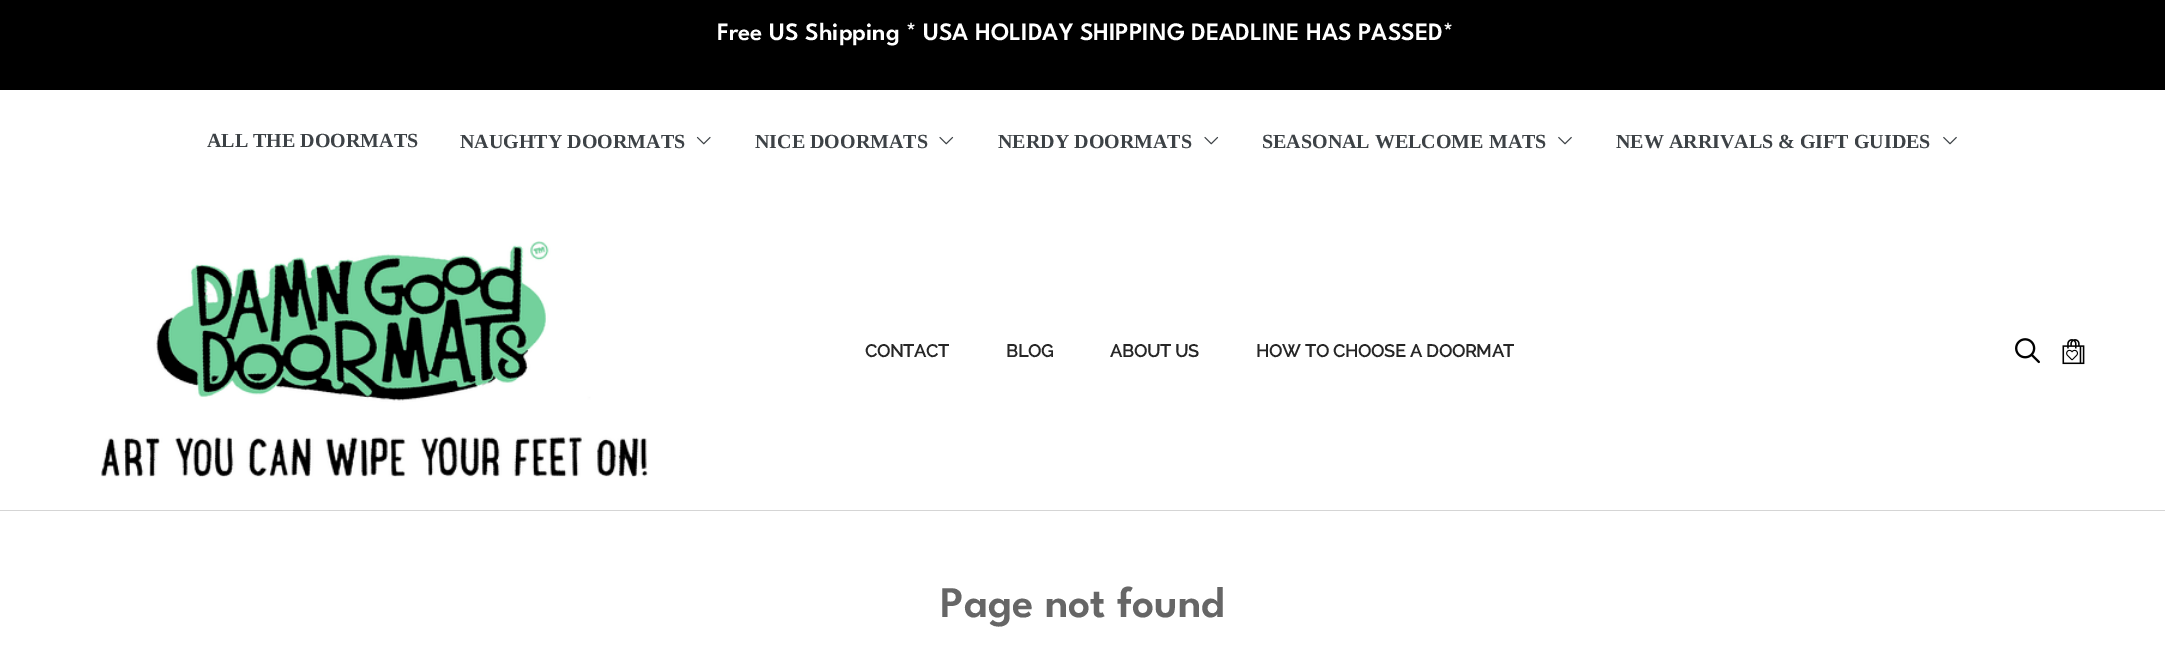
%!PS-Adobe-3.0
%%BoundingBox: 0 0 2165 660
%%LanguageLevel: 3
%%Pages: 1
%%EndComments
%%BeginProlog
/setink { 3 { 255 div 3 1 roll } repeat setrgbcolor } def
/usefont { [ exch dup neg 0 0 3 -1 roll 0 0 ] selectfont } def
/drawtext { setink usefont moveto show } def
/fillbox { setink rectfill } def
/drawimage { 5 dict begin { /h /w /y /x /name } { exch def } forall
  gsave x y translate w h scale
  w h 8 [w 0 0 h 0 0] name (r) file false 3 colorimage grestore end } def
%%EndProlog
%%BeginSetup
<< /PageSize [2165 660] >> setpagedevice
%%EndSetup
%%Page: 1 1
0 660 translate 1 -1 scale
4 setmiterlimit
0 0 2165 660 255 255 255 fillbox
0 0 2165 90 0 0 0 fillbox
(Free US Shipping * USA HOLIDAY SHIPPING DEADLINE HAS PASSED*) 717 40 /LeagueSpartan-Thin 25 255 255 255 drawtext
(ALL THE DOORMATS) 207 147 /LiberationSerif-Bold 20 61 66 70 drawtext
(NAUGHTY DOORMATS) 460 148 /LiberationSerif-Bold 20 61 66 70 drawtext
(assets/img1.rgb) 696 136 15 9 drawimage
(NICE DOORMATS) 755 148 /LiberationSerif-Bold 20 61 66 70 drawtext
(assets/img2.rgb) 939 136 15 9 drawimage
(NERDY DOORMATS) 998 148 /LiberationSerif-Bold 20 61 66 70 drawtext
(assets/img2.rgb) 1204 136 15 9 drawimage
(SEASONAL WELCOME MATS) 1262 148 /LiberationSerif-Bold 20 61 66 70 drawtext
(assets/img3.rgb) 1558 136 14 9 drawimage
(NEW ARRIVALS & GIFT GUIDES) 1616 148 /LiberationSerif-Bold 20 61 66 70 drawtext
(assets/img3.rgb) 1943 136 14 9 drawimage
0 510 2165 1 213 213 213 fillbox
(assets/img4.rgb) 101 241 547 236 drawimage
(CONTACT) 865 357 /Raleway-Bold 17.5 38 38 38 drawtext
(BLOG) 1006 357 /Raleway-Bold 17.5 38 38 38 drawtext
(ABOUT US) 1110 357 /Raleway-Bold 17.5 38 38 38 drawtext
(HOW TO CHOOSE A DOORMAT) 1256 357 /Raleway-Bold 17.5 38 38 38 drawtext
(assets/img5.rgb) 2015 338 25 26 drawimage
(assets/img6.rgb) 2062 339 23 26 drawimage
(Page not found) 940 617 /LeagueSpartan-Thin 43.75 102 102 102 drawtext
showpage
%%EOF
